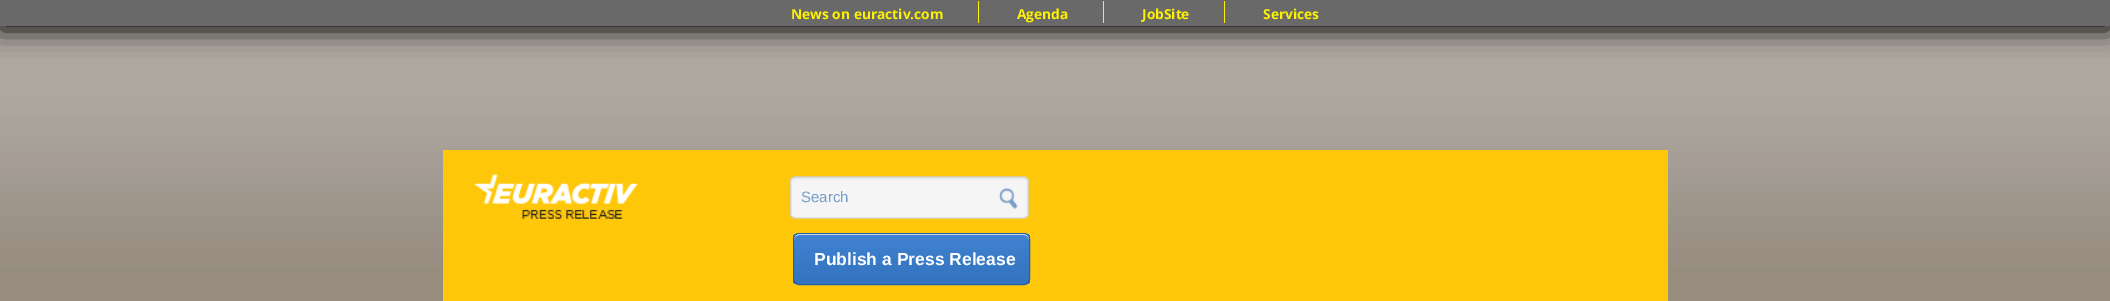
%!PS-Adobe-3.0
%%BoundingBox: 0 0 2110 301
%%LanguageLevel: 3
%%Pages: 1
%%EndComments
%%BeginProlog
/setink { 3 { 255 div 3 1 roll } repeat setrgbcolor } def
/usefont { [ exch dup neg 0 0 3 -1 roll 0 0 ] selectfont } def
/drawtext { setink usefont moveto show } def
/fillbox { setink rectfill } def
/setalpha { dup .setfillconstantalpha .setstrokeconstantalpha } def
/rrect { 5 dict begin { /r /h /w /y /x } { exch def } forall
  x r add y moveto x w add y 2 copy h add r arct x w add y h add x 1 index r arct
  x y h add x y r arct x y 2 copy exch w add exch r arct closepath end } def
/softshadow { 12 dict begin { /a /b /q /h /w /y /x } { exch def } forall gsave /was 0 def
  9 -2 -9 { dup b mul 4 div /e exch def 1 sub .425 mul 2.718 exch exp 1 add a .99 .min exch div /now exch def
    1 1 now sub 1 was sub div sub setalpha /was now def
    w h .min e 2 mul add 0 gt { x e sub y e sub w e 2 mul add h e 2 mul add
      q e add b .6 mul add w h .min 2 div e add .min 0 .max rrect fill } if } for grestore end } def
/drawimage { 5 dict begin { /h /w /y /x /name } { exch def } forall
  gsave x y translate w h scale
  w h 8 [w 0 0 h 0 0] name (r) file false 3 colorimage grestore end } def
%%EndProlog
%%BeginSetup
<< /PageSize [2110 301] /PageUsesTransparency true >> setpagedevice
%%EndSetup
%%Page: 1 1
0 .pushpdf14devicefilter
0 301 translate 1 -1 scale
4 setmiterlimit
0 0 2110 301 255 255 255 fillbox
(assets/img1.rgb) 0 26 2110 275 drawimage
0 0 0 setink
0 4 2110 26 0 12.5 1 softshadow
0 0 2110 26 105 105 105 fillbox
(News on euractiv.com) 791 19 /OpenSans-Bold 13.75 254 242 0 drawtext
978 1 1 22 254 242 0 fillbox
(Agenda) 1017 19 /OpenSans-Bold 13.75 254 242 0 drawtext
1103 1 1 22 254 242 0 fillbox
(JobSite) 1142 19 /OpenSans-Bold 13.75 254 242 0 drawtext
1224 1 1 22 254 242 0 fillbox
(Services) 1263 19 /OpenSans-Bold 13.75 254 242 0 drawtext
443 150 1225 151 255 199 9 fillbox
(assets/img2.rgb) 473 173 165 46 drawimage
(assets/img3.rgb) 788 176 242 43 drawimage
(Search) 801 202 /LiberationSans-Regular 15 116 156 203 drawtext
(assets/img4.rgb) 998 187 20 22 drawimage
gsave
793 233 237 52 6 rrect clip newpath
gsave 793 234 moveto 1030 234 lineto 1030 284 lineto 793 284 lineto closepath clip newpath
<< /ShadingType 2 /ColorSpace /DeviceRGB /Coords [911 234 911 284] /Extend [true true] /Function << /FunctionType 2 /Domain [0 1] /C0 [0.251 0.514 0.824] /C1 [0.2 0.451 0.745] /N 1 >> >> shfill grestore
grestore
255 255 255 setink
799 235 moveto 1024 235 lineto 1027 235 1029 237 1029 240 curveto 1029 239 lineto 1029 236 1027 234 1024 234 curveto 799 234 lineto 796 234 794 236 794 239 curveto 794 240 lineto 794 237 796 235 799 235 curveto closepath fill
37 97 168 setink
793.5 233.5 236 51 5.5 rrect stroke
(Publish a Press Release) 814 265 /LiberationSans-Bold 17.5 255 255 255 drawtext
.poppdf14devicefilter showpage
%%EOF
